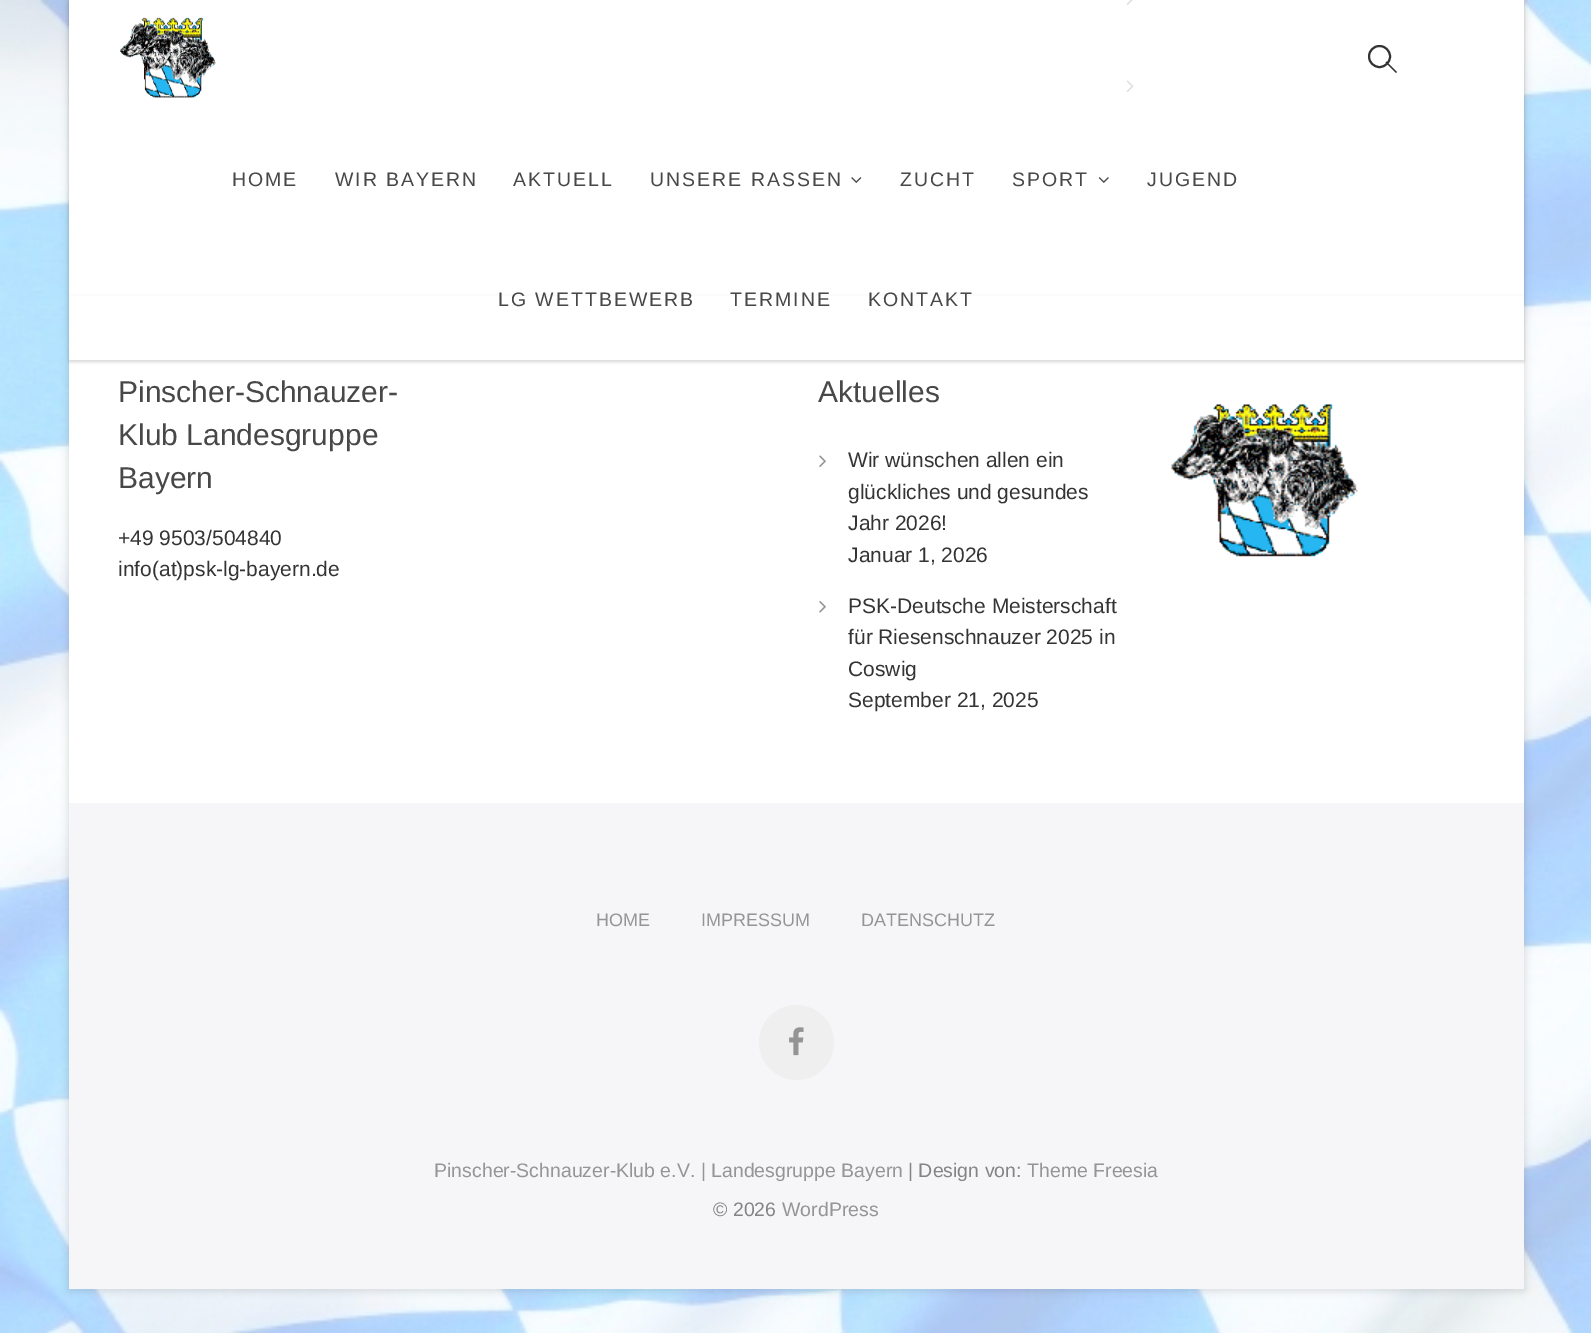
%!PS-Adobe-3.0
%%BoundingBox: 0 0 1591 1333
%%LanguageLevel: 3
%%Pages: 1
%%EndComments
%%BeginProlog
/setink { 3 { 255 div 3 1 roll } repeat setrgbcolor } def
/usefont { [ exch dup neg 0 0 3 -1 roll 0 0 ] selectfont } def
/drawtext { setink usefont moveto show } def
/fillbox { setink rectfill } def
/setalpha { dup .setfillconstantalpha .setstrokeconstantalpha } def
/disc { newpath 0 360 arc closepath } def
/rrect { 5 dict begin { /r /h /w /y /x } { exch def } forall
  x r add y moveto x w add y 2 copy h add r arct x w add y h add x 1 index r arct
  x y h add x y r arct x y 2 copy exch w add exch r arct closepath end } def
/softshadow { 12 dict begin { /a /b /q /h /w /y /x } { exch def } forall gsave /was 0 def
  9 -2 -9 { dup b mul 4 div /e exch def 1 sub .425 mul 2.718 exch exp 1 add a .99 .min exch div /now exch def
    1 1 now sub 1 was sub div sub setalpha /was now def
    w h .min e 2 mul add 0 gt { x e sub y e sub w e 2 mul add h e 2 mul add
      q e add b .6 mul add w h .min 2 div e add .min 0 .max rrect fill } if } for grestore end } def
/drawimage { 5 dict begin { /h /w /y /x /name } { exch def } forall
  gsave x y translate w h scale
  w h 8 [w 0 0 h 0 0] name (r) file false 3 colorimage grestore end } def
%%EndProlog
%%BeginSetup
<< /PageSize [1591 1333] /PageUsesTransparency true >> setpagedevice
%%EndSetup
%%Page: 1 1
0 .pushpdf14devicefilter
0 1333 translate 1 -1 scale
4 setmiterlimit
0 0 1591 1333 255 255 255 fillbox
(assets/img1.rgb) 0 0 1591 1333 drawimage
0 0 0 setink
69 -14 1455 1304 0 4.5 0.15 softshadow
69 0 1455 803 255 255 255 fillbox
(assets/img5.rgb) 1126 0 7 5 drawimage
(assets/img6.rgb) 1126 80 8 12 drawimage
69 294 1455 2 242 242 242 fillbox
gsave
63 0 moveto 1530 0 lineto 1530 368 lineto 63 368 lineto closepath 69 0 moveto 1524 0 lineto 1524 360 lineto 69 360 lineto closepath eoclip newpath
0 0 0 setink
69 2 1455 360 0 1.5 0.15 softshadow
grestore
0.7 setalpha
69 0 1455 296 255 255 255 fillbox
1 setalpha
(assets/img2.rgb) 120 17 96 81 drawimage
51 51 51 setink
2 setlinewidth
1379.5 56.5 10.5 disc stroke
1385.5 62.5 moveto 1386.5 61.5 lineto 1397 72 lineto 1396 73 lineto closepath fill
/Arimo-Regular 19.5 usefont
72 72 72 setink
232 186 moveto 2 0 (HOME) ashow
335 186 moveto 2 0 (WIR BAYERN) ashow
513 186 moveto 2 0 (AKTUELL) ashow
650 186 moveto 2 0 (UNSERE RASSEN) ashow
(assets/img3.rgb) 851 177 11 6 drawimage
900 186 moveto 2 0 (ZUCHT) ashow
1012 186 moveto 2 0 (SPORT) ashow
(assets/img4.rgb) 1098 177 11 6 drawimage
1147 186 moveto 2 0 (JUGEND) ashow
498 306 moveto 2 0 (LG WETTBEWERB) ashow
730 306 moveto 2 0 (TERMINE) ashow
868 306 moveto 2 0 (KONTAKT) ashow
(Pinscher-Schnauzer-) 118 402 /Arimo-Regular 30 72 72 72 drawtext
(Klub Landesgruppe) 118 445 /Arimo-Regular 30 72 72 72 drawtext
(Bayern) 118 488 /Arimo-Regular 30 72 72 72 drawtext
(+49 9503/504840) 118 545 /Arimo-Regular 21 52 52 52 drawtext
(info\(at\)psk-lg-bayern.de) 118 576 /Arimo-Regular 21 52 52 52 drawtext
(Aktuelles) 818 402 /Arimo-Regular 30 72 72 72 drawtext
(assets/img7.rgb) 819 455 7 12 drawimage
(Wir wünschen allen ein) 848 467 /Arimo-Regular 21 52 52 52 drawtext
(glückliches und gesundes) 848 499 /Arimo-Regular 21 52 52 52 drawtext
(Jahr 2026!) 848 530 /Arimo-Regular 21 52 52 52 drawtext
(Januar 1, 2026) 848 562 /Arimo-Regular 21 52 52 52 drawtext
(assets/img8.rgb) 819 601 7 12 drawimage
(PSK-Deutsche Meisterschaft) 848 613 /Arimo-Regular 21 52 52 52 drawtext
(für Riesenschnauzer 2025 in) 848 644 /Arimo-Regular 21 52 52 52 drawtext
(Coswig) 848 676 /Arimo-Regular 21 52 52 52 drawtext
(September 21, 2025) 848 707 /Arimo-Regular 21 52 52 52 drawtext
(assets/img9.rgb) 1171 404 187 153 drawimage
69 803 1455 486 246 246 248 fillbox
(HOME) 596 926 /Arimo-Regular 18 150 149 149 drawtext
(IMPRESSUM) 701 926 /Arimo-Regular 18 150 149 149 drawtext
(DATENSCHUTZ) 861 926 /Arimo-Regular 18 150 149 149 drawtext
239 239 239 setink
796.5 1042.5 37.5 disc fill
(assets/img10.rgb) 789 1027 15 29 drawimage
(Pinscher-Schnauzer-Klub e.V. | Landesgruppe Bayern) 434 1177 /Arimo-Regular 19.5 150 149 149 drawtext
(| Design von:) 908 1177 /Arimo-Regular 19.5 132 132 132 drawtext
(Theme Freesia) 1027 1177 /Arimo-Regular 19.5 150 149 149 drawtext
(© 2026) 713 1216 /Arimo-Regular 19.5 132 132 132 drawtext
(WordPress) 782 1216 /Arimo-Regular 19.5 150 149 149 drawtext
.poppdf14devicefilter showpage
%%EOF
